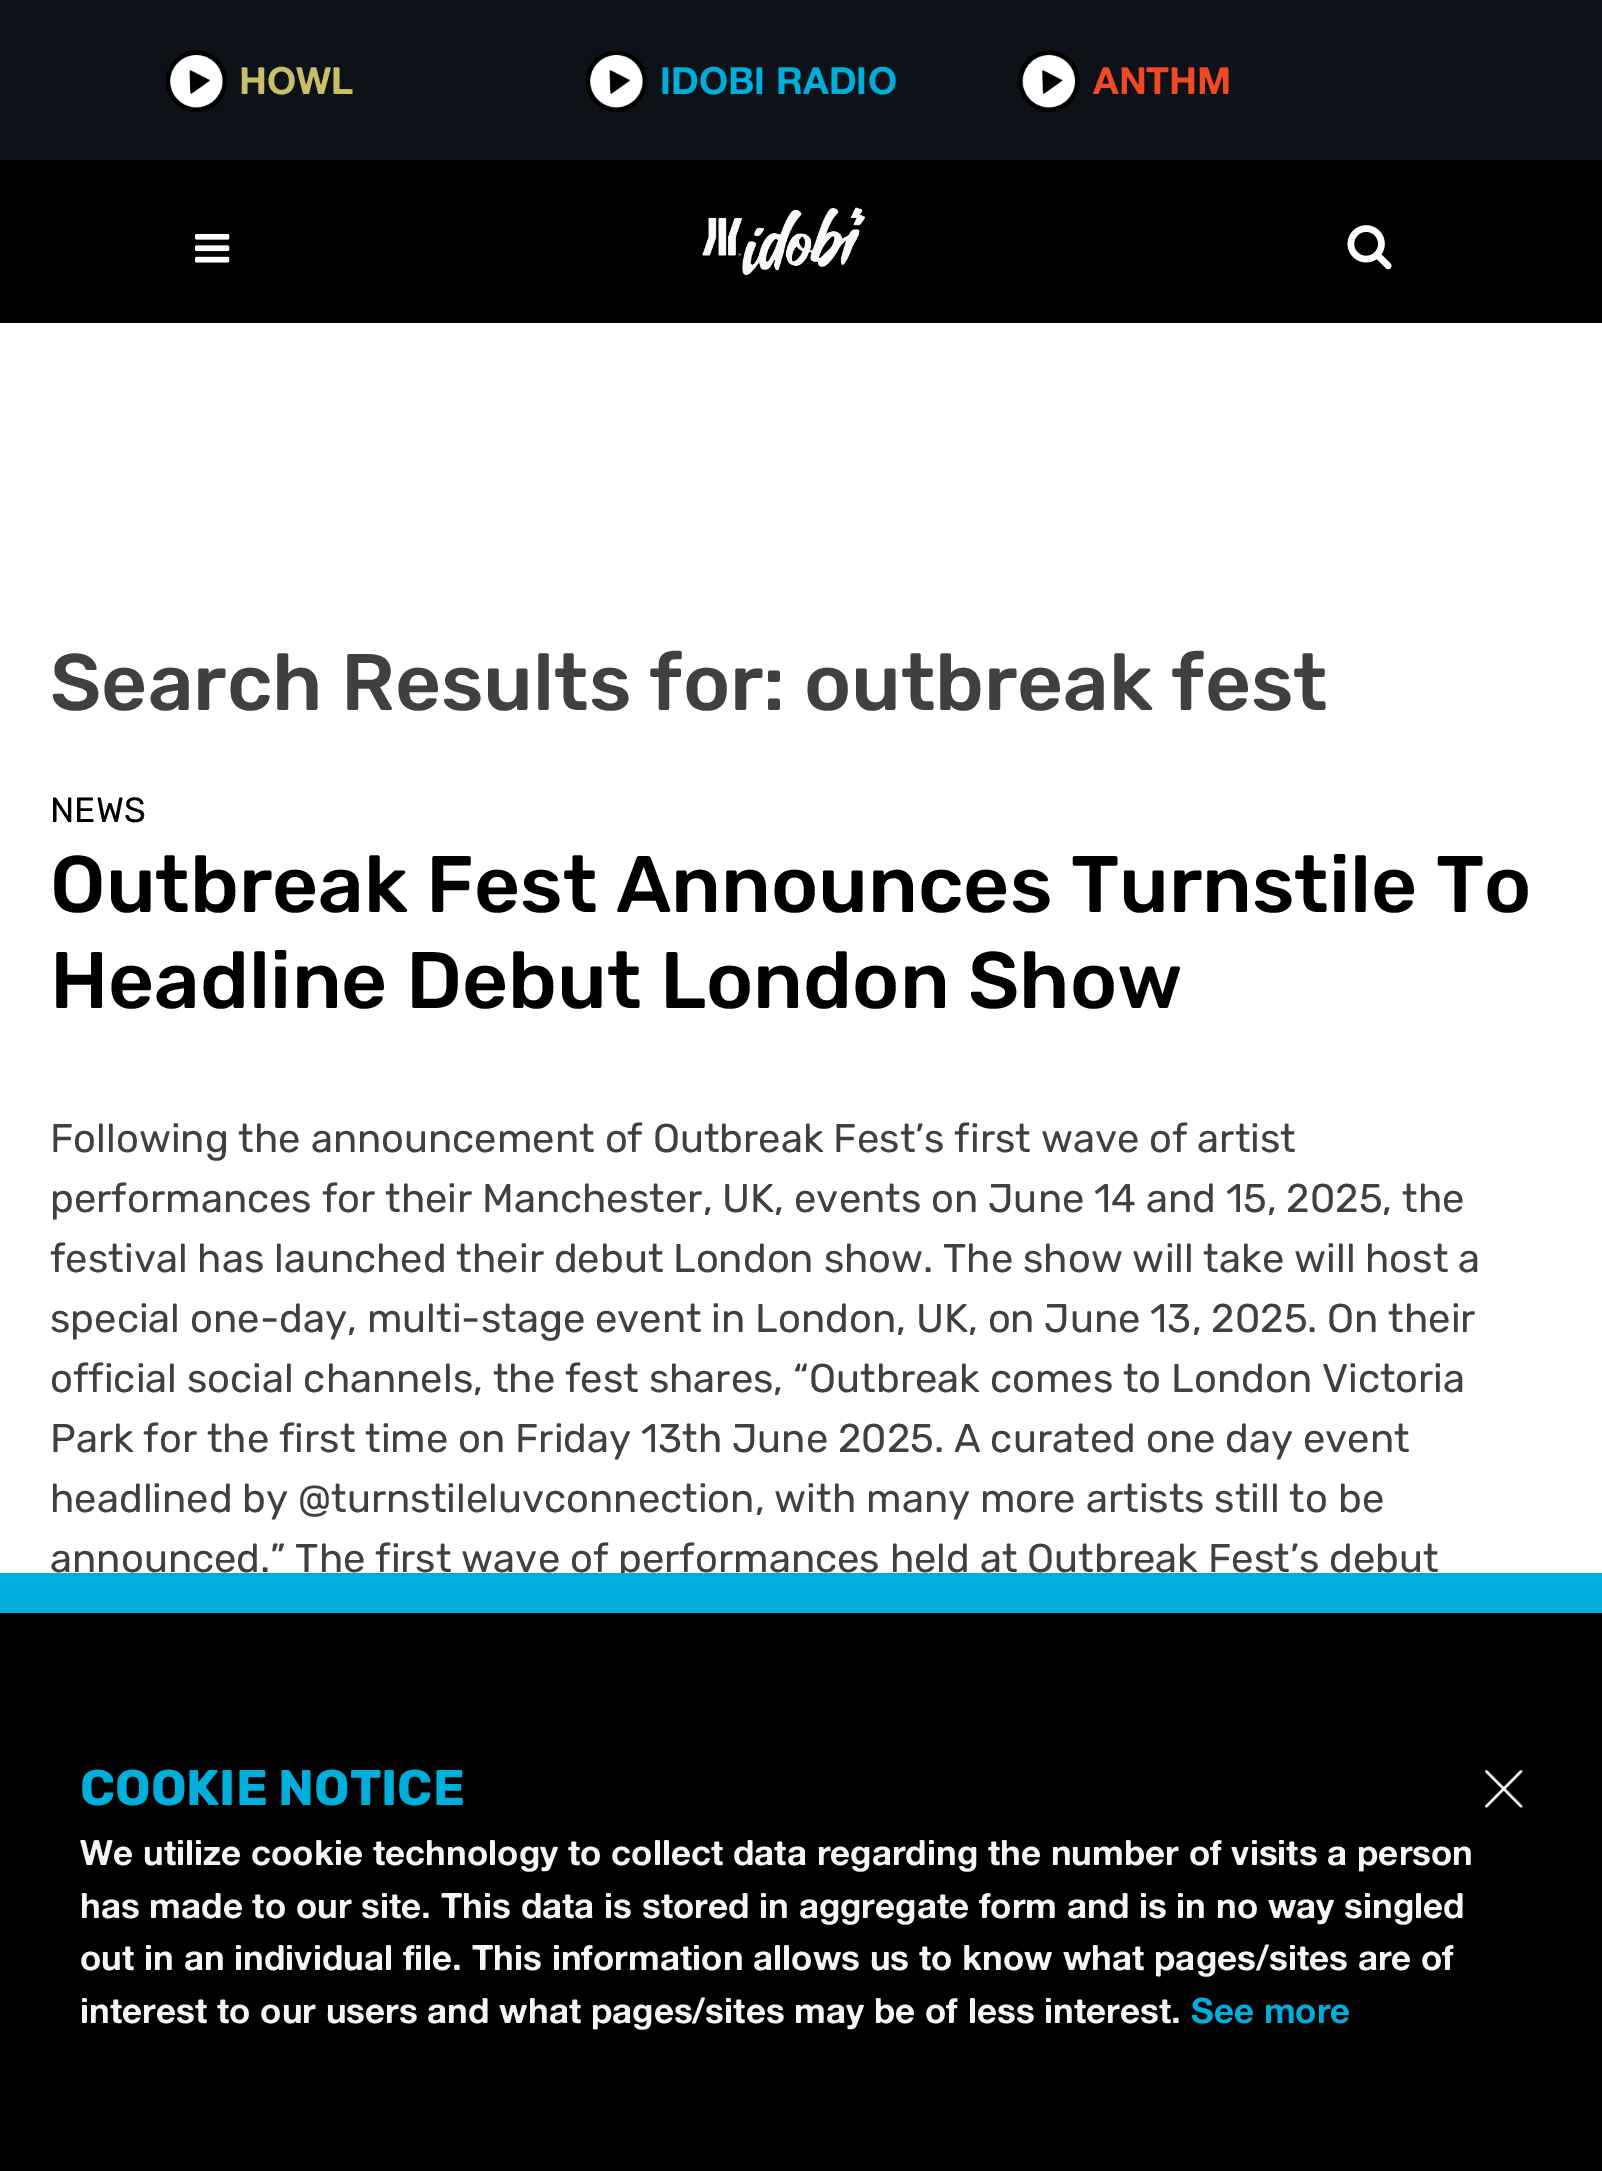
%!PS-Adobe-3.0
%%BoundingBox: 0 0 1602 2171
%%LanguageLevel: 3
%%Pages: 1
%%EndComments
%%BeginProlog
/setink { 3 { 255 div 3 1 roll } repeat setrgbcolor } def
/usefont { [ exch dup neg 0 0 3 -1 roll 0 0 ] selectfont } def
/drawtext { setink usefont moveto show } def
/fillbox { setink rectfill } def
/drawimage { 5 dict begin { /h /w /y /x /name } { exch def } forall
  gsave x y translate w h scale
  w h 8 [w 0 0 h 0 0] name (r) file false 3 colorimage grestore end } def
%%EndProlog
%%BeginSetup
<< /PageSize [1602 2171] >> setpagedevice
%%EndSetup
%%Page: 1 1
0 2171 translate 1 -1 scale
4 setmiterlimit
0 0 1602 2171 255 255 255 fillbox
0 160 1602 163 0 0 0 fillbox
0 0 1602 160 13 18 24 fillbox
(assets/img1.rgb) 165 50 63 62 drawimage
(HOWL) 239 94 /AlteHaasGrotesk-Bold 37.5 202 190 104 drawtext
(assets/img1.rgb) 585 50 63 62 drawimage
(IDOBI RADIO) 660 94 /AlteHaasGrotesk-Bold 37.5 0 174 219 drawtext
(assets/img2.rgb) 1018 50 62 62 drawimage
(ANTHM) 1093 94 /AlteHaasGrotesk-Bold 37.5 240 73 36 drawtext
(assets/img3.rgb) 195 233 35 30 drawimage
(assets/img4.rgb) 702 207 163 69 drawimage
(assets/img5.rgb) 1347 225 45 45 drawimage
(Search Results for: outbreak fest) 50 710 /Rubik-Medium 80 64 64 64 drawtext
(NEWS) 50 822 /Rubik-Regular 35 0 0 0 drawtext
(Outbreak Fest Announces Turnstile To) 50 912 /Rubik-Medium 80 0 0 0 drawtext
(Headline Debut London Show) 50 1008 /Rubik-Medium 80 0 0 0 drawtext
(Following the announcement of Outbreak Fest’s first wave of artist) 50 1152 /Rubik-Regular 40 64 64 64 drawtext
(performances for their Manchester, UK, events on June 14 and 15, 2025, the) 50 1212 /Rubik-Regular 40 64 64 64 drawtext
(festival has launched their debut London show. The show will take will host a) 50 1272 /Rubik-Regular 40 64 64 64 drawtext
(special one-day, multi-stage event in London, UK, on June 13, 2025. On their) 50 1332 /Rubik-Regular 40 64 64 64 drawtext
(official social channels, the fest shares, “Outbreak comes to London Victoria) 50 1392 /Rubik-Regular 40 64 64 64 drawtext
(Park for the first time on Friday 13th June 2025. A curated one day event) 50 1452 /Rubik-Regular 40 64 64 64 drawtext
(headlined by @turnstileluvconnection, with many more artists still to be) 50 1512 /Rubik-Regular 40 64 64 64 drawtext
(announced.” The first wave of performances held at Outbreak Fest’s debut) 50 1572 /Rubik-Regular 40 64 64 64 drawtext
0 1613 1602 558 0 0 0 fillbox
0 1573 1602 40 0 174 219 fillbox
(COOKIE NOTICE) 80 1805 /Rubik-Bold 50 0 174 219 drawtext
(assets/img6.rgb) 1485 1769 38 39 drawimage
(We utilize cookie technology to collect data regarding the number of visits a person) 80 1865 /AlteHaasGrotesk-Bold 35 245 245 245 drawtext
(has made to our site. This data is stored in aggregate form and is in no way singled) 80 1918 /AlteHaasGrotesk-Bold 35 245 245 245 drawtext
(out in an individual file. This information allows us to know what pages/sites are of) 80 1970 /AlteHaasGrotesk-Bold 35 245 245 245 drawtext
(interest to our users and what pages/sites may be of less interest.) 80 2023 /AlteHaasGrotesk-Bold 35 245 245 245 drawtext
(See more) 1191 2023 /AlteHaasGrotesk-Bold 35 0 174 219 drawtext
showpage
%%EOF
